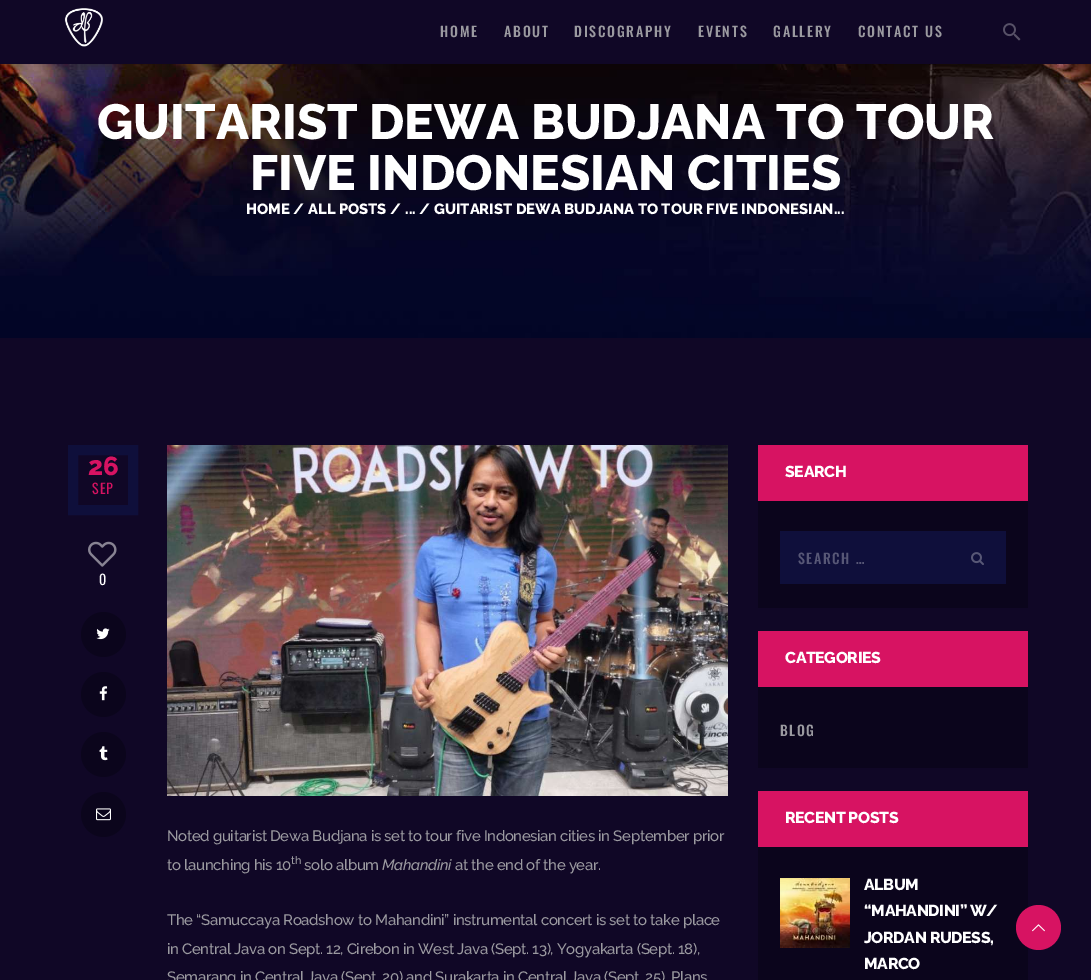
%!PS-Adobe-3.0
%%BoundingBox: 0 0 1091 980
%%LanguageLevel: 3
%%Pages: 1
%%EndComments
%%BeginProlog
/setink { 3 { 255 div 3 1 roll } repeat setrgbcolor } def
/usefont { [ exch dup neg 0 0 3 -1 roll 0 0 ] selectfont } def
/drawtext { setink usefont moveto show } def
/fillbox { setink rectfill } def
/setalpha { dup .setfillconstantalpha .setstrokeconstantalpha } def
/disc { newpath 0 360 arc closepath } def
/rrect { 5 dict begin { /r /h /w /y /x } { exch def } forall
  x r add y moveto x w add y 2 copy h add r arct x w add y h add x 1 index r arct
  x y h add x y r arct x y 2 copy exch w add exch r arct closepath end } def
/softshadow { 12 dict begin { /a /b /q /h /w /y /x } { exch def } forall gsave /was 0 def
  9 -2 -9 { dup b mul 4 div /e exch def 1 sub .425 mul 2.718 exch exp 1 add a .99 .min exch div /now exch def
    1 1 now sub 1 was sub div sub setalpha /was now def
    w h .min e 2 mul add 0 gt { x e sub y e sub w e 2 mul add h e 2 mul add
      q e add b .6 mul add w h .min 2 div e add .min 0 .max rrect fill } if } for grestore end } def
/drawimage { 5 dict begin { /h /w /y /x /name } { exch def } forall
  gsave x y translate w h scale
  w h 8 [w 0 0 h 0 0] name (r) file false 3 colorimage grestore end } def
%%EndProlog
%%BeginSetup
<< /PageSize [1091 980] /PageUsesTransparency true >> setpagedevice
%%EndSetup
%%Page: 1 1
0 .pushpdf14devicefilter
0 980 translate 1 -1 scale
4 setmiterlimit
0 0 1091 980 16 7 38 fillbox
(assets/img1.rgb) 0 64 1091 274 drawimage
0 0 0 setink
-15 2 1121 64 0 5 0.2 softshadow
0 0 1091 64 16 7 38 fillbox
(assets/img2.rgb) 64 8 39 39 drawimage
/Oswald-Medium 14 usefont
155 154 160 setink
440 37 moveto 1.75 0 (HOME) ashow
504 37 moveto 1.75 0 (ABOUT) ashow
574 37 moveto 1.75 0 (DISCOGRAPHY) ashow
698 37 moveto 1.75 0 (EVENTS) ashow
773 37 moveto 1.75 0 (GALLERY) ashow
858 37 moveto 1.75 0 (CONTACT US) ashow
(assets/img3.rgb) 1003 23 18 18 drawimage
(GUITARIST DEWA BUDJANA TO TOUR) 97 139 /Raleway-ExtraBold 49.4 255 255 255 drawtext
(FIVE INDONESIAN CITIES) 250 190 /Raleway-ExtraBold 49.4 255 255 255 drawtext
(HOME /) 246 214 /Raleway-ExtraBold 14.8 255 255 255 drawtext
(ALL POSTS /) 308 214 /Raleway-ExtraBold 14.8 255 255 255 drawtext
(... /) 405 214 /Raleway-ExtraBold 14.8 255 255 255 drawtext
(GUITARIST DEWA BUDJANA TO TOUR FIVE INDONESIAN...) 434 214 /Raleway-ExtraBold 14.8 255 255 255 drawtext
15 15 59 setink
10 setlinewidth
73 450 60 60 rectstroke
/Raleway-ExtraBold 26 usefont
215 19 98 setink
88 475 moveto -0.35 0 (26) ashow
/Oswald-Regular 14 usefont
92 494 moveto 1 0 (SEP) ashow
(assets/img4.rgb) 88 541 29 26 drawimage
255 255 255 setink
99 585 moveto 1 0 (0) ashow
11 5 28 setink
103.5 634.5 22.5 disc fill
(assets/img5.rgb) 96 628 14 12 drawimage
103.5 694.5 22.5 disc fill
(assets/img6.rgb) 99 686 9 15 drawimage
103.5 754.5 22.5 disc fill
(assets/img7.rgb) 99 746 9 15 drawimage
103.5 814.5 22.5 disc fill
(assets/img8.rgb) 96 808 15 13 drawimage
(assets/img9.rgb) 167 445 561 351 drawimage
/Raleway-Medium 15 usefont
155 154 160 setink
167 841 moveto -0.35 0 (Noted guitarist Dewa Budjana is set to tour five Indonesian cities in September prior) ashow
167 870 moveto -0.35 0 (to launching his 10) ashow
/Raleway-Medium 11 usefont
291 864 moveto -0.35 0 (th) ashow
/Raleway-Medium 15 usefont
304 870 moveto -0.35 0 (solo album) ashow
/Raleway-ThinItalic 15 usefont
382 870 moveto -0.35 0 (Mahandini) ashow
/Raleway-Medium 15 usefont
455 870 moveto -0.35 0 (at the end of the year.) ashow
167 925 moveto -0.35 0 (The “Samuccaya Roadshow to Mahandini” instrumental concert is set to take place) ashow
167 954 moveto -0.35 0 (in Central Java on Sept. 12, Cirebon in West Java \(Sept. 13\), Yogyakarta \(Sept. 18\),) ashow
167 982 moveto -0.35 0 (Semarang in Central Java \(Sept. 20\) and Surakarta in Central Java \(Sept. 25\). Plans) ashow
758 501 270 107 11 5 28 fillbox
758 445 270 56 215 19 98 fillbox
/Raleway-ExtraBold 15.9 usefont
255 255 255 setink
785 477 moveto -0.4 0 (SEARCH) ashow
780 531 226 53 15 15 59 fillbox
/Oswald-Medium 14 usefont
87 87 118 setink
798 564 moveto 1.5 0 (SEARCH …) ashow
(assets/img10.rgb) 971 552 13 13 drawimage
758 687 270 81 11 5 28 fillbox
758 631 270 56 215 19 98 fillbox
/Raleway-ExtraBold 15.9 usefont
255 255 255 setink
785 663 moveto -0.4 0 (CATEGORIES) ashow
/Oswald-Medium 14 usefont
155 154 160 setink
780 736 moveto 1.5 0 (BLOG) ashow
758 847 270 133 11 5 28 fillbox
758 791 270 56 215 19 98 fillbox
/Raleway-ExtraBold 15.9 usefont
255 255 255 setink
785 823 moveto -0.4 0 (RECENT POSTS) ashow
(assets/img11.rgb) 780 878 70 70 drawimage
864 890 moveto -0.4 0 (ALBUM) ashow
864 916 moveto -0.4 0 (“MAHANDINI” W/) ashow
864 943 moveto -0.4 0 (JORDAN RUDESS,) ashow
864 969 moveto -0.4 0 (MARCO) ashow
215 19 98 setink
1038.5 927.5 22.5 disc fill
(assets/img12.rgb) 1032 924 13 8 drawimage
.poppdf14devicefilter showpage
%%EOF
